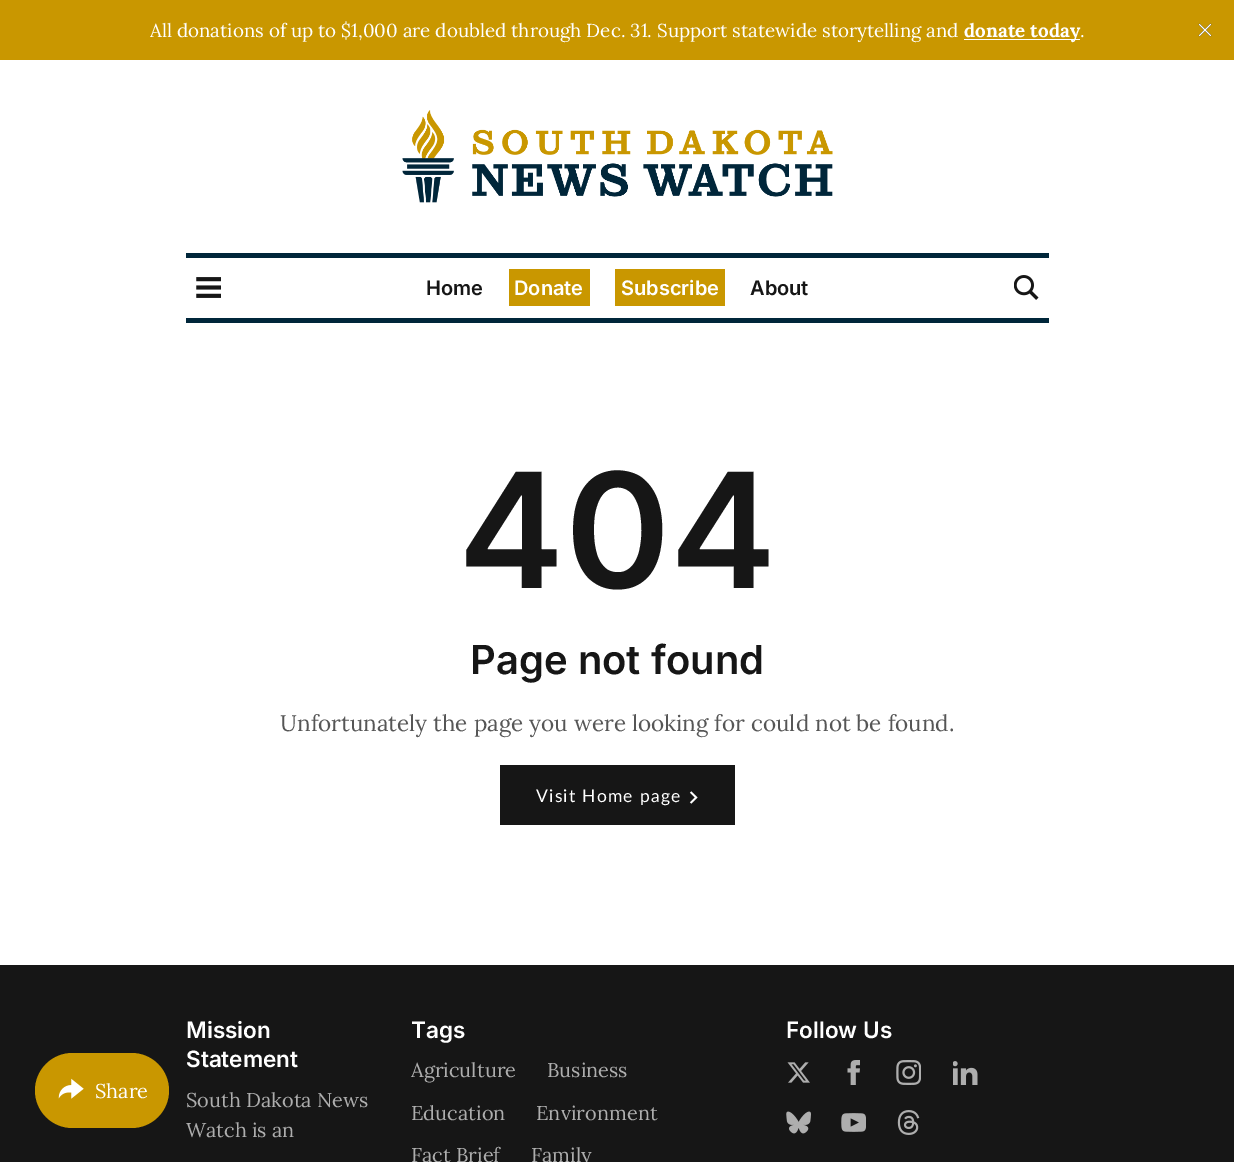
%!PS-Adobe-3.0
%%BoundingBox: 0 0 1234 1162
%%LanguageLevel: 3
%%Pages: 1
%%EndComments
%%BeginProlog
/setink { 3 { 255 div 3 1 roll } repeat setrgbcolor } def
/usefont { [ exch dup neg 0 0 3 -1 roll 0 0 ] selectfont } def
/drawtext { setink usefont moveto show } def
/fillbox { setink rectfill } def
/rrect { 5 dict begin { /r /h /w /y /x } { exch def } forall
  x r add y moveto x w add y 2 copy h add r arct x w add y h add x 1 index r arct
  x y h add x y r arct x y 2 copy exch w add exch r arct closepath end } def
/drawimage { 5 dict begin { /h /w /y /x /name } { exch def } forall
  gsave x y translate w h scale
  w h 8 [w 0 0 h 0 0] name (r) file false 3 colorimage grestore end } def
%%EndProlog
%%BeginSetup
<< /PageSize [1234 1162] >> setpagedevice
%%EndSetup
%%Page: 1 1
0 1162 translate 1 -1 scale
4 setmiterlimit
0 0 1234 1162 255 255 255 fillbox
0 0 1234 60 201 151 0 fillbox
(All donations of up to $1,000 are doubled through Dec. 31. Support statewide storytelling and) 150 37 /Lora-Regular 18.75 255 255 255 drawtext
964 39 116 1 255 255 255 fillbox
(donate today) 964 37 /Lora-Bold 18.75 255 255 255 drawtext
(.) 1080 37 /Lora-Regular 18.75 255 255 255 drawtext
(assets/img1.rgb) 1198 23 14 14 drawimage
(assets/img2.rgb) 402 110 431 93 drawimage
186 253 863 5 0 38 58 fillbox
186 318 863 5 0 38 58 fillbox
(assets/img3.rgb) 196 277 25 21 drawimage
(Home) 426 295 /Inter-SemiBold 20 22 22 22 drawtext
509 269 81 37 201 151 0 fillbox
(Donate) 514 295 /Inter-SemiBold 20 255 255 255 drawtext
615 269 110 37 201 151 0 fillbox
(Subscribe) 621 295 /Inter-SemiBold 20 255 255 255 drawtext
(About) 750 295 /Inter-SemiBold 20 22 22 22 drawtext
(assets/img4.rgb) 1014 275 25 25 drawimage
(404) 458 588 /Inter-SemiBold 160 22 22 22 drawtext
(Page not found) 470 674 /Inter-SemiBold 40 22 22 22 drawtext
(Unfortunately the page you were looking for could not be found.) 280 731 /Lora-Regular 22.5 86 86 86 drawtext
500 765 235 60 22 22 22 fillbox
/Lato-Regular 17.5 usefont
255 255 255 setink
536 802 moveto 1.25 0 (Visit Home page) ashow
(assets/img5.rgb) 689 791 9 13 drawimage
0 965 1234 197 22 22 22 fillbox
201 151 0 setink
35 1053 134 75 37.5 rrect fill
(assets/img6.rgb) 58 1078 26 21 drawimage
(Share) 95 1098 /Lora-Regular 20 255 255 255 drawtext
(Mission) 186 1038 /Inter-SemiBold 22.5 255 255 255 drawtext
(Statement) 186 1067 /Inter-SemiBold 22.5 255 255 255 drawtext
(South Dakota News) 186 1107 /Lora-Regular 20 174 174 174 drawtext
(Watch is an) 186 1137 /Lora-Regular 20 174 174 174 drawtext
(Tags) 411 1038 /Inter-SemiBold 22.5 255 255 255 drawtext
(Agriculture) 411 1077 /Lora-Regular 20 174 174 174 drawtext
(Business) 547 1077 /Lora-Regular 20 174 174 174 drawtext
(Education) 411 1120 /Lora-Regular 20 174 174 174 drawtext
(Environment) 536 1120 /Lora-Regular 20 174 174 174 drawtext
(Fact Brief) 411 1162 /Lora-Regular 20 174 174 174 drawtext
(Family) 531 1162 /Lora-Regular 20 174 174 174 drawtext
(Follow Us) 786 1038 /Inter-SemiBold 22.5 255 255 255 drawtext
(assets/img7.rgb) 787 1062 23 21 drawimage
(assets/img8.rgb) 847 1060 13 25 drawimage
(assets/img9.rgb) 896 1060 25 25 drawimage
(assets/img10.rgb) 953 1061 25 24 drawimage
(assets/img11.rgb) 786 1111 25 23 drawimage
(assets/img12.rgb) 841 1113 25 19 drawimage
(assets/img13.rgb) 897 1110 23 25 drawimage
showpage
%%EOF
